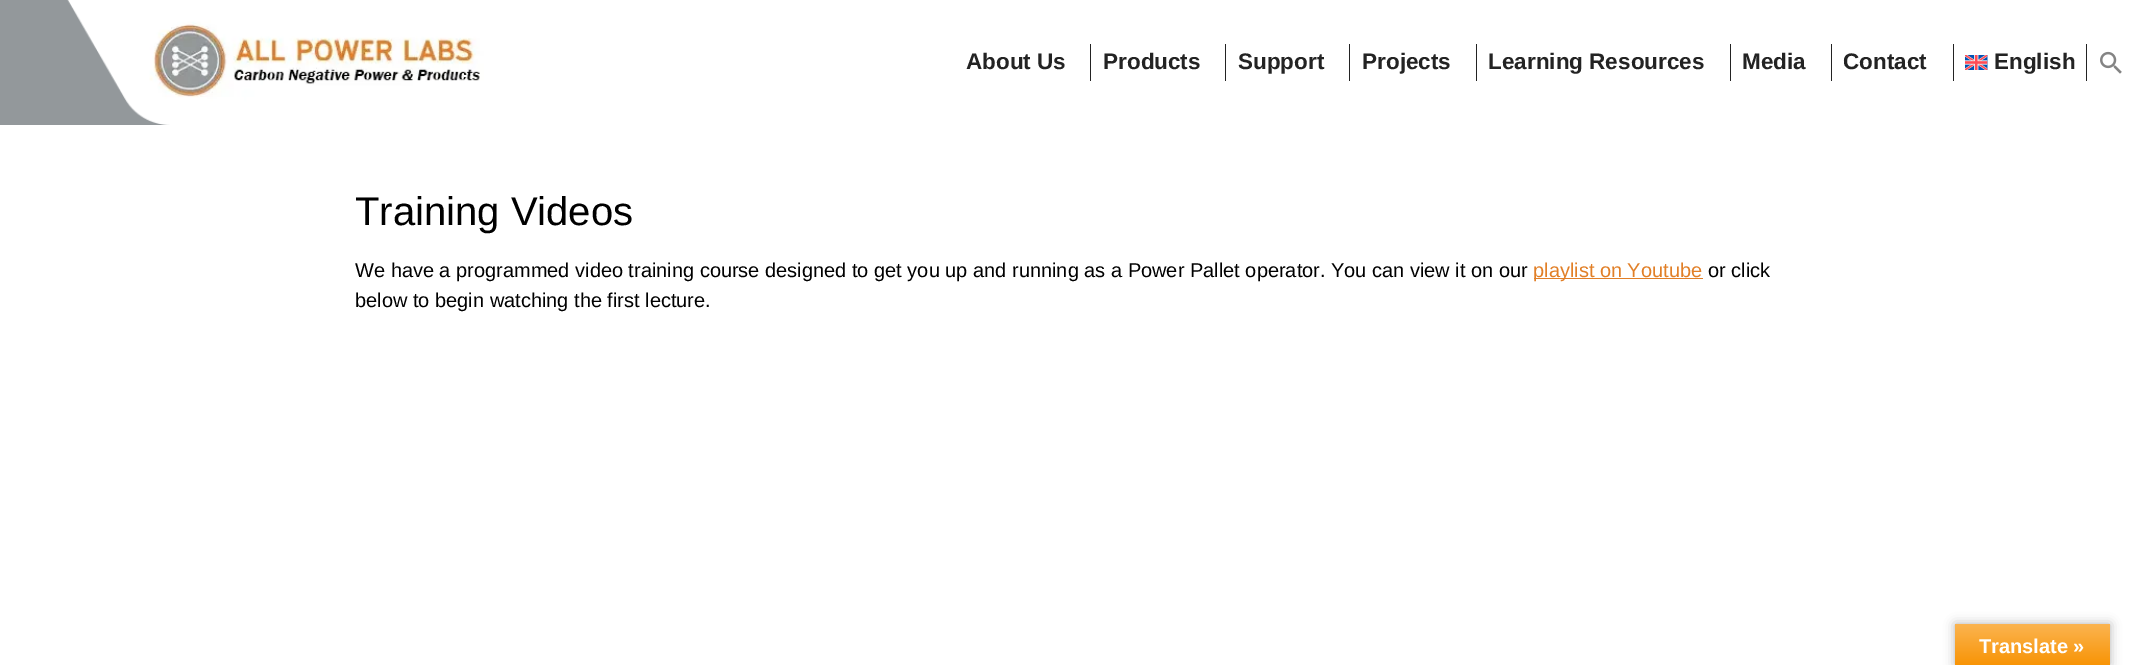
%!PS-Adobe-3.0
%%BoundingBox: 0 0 2134 665
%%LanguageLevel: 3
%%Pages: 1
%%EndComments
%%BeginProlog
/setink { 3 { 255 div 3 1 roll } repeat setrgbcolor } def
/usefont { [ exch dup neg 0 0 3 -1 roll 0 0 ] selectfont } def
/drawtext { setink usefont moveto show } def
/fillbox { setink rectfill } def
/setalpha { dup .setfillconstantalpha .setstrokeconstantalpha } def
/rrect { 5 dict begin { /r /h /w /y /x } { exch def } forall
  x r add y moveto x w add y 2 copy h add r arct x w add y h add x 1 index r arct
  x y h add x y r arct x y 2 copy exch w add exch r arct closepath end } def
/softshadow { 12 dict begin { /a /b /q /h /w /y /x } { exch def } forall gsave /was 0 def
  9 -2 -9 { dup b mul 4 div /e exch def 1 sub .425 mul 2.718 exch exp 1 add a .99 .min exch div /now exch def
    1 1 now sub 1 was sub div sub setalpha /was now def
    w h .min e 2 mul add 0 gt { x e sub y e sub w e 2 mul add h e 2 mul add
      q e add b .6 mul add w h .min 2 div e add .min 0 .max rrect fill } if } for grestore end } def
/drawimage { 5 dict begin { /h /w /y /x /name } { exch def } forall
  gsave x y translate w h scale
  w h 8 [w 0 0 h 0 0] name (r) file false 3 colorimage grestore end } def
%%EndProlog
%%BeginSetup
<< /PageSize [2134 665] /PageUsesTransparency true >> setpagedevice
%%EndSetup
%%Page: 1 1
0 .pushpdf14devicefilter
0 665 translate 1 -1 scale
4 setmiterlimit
0 0 2134 665 255 255 255 fillbox
0 0 170 125 147 152 155 fillbox
(assets/img1.rgb) 67 0 599 125 drawimage
1090 44 1 37 35 35 35 fillbox
(About Us) 966 69 /LiberationSans-Bold 22.5 35 35 35 drawtext
1225 44 1 37 35 35 35 fillbox
(Products) 1103 69 /LiberationSans-Bold 22.5 35 35 35 drawtext
1349 44 1 37 35 35 35 fillbox
(Support) 1238 69 /LiberationSans-Bold 22.5 35 35 35 drawtext
1476 44 1 37 35 35 35 fillbox
(Projects) 1362 69 /LiberationSans-Bold 22.5 35 35 35 drawtext
1730 44 1 37 35 35 35 fillbox
(Learning Resources) 1488 69 /LiberationSans-Bold 22.5 35 35 35 drawtext
1831 44 1 37 35 35 35 fillbox
(Media) 1742 69 /LiberationSans-Bold 22.5 35 35 35 drawtext
1953 44 1 37 35 35 35 fillbox
(Contact) 1843 69 /LiberationSans-Bold 22.5 35 35 35 drawtext
2086 44 1 37 35 35 35 fillbox
(assets/img2.rgb) 1965 55 23 15 drawimage
(English) 1994 69 /LiberationSans-Bold 22.5 35 35 35 drawtext
(assets/img3.rgb) 2100 51 22 23 drawimage
(Training Videos) 355 225 /LiberationSans-Regular 40 0 0 0 drawtext
(We have a programmed video training course designed to get you up and running as a Power Pallet operator. You can view it on our) 355 277 /LiberationSans-Regular 20 0 0 0 drawtext
1534 278 169 1 225 127 39 fillbox
(playlist on Youtube) 1533 277 /LiberationSans-Regular 20 225 127 39 drawtext
(or click) 1708 277 /LiberationSans-Regular 20 0 0 0 drawtext
(below to begin watching the first lecture.) 355 307 /LiberationSans-Regular 20 0 0 0 drawtext
1955 624 155 41 0 5.5 0.3 softshadow
gsave 1955 624 moveto 2110 624 lineto 2110 665 lineto 1955 665 lineto closepath clip newpath
<< /ShadingType 2 /ColorSpace /DeviceRGB /Coords [2033 624 2033 665] /Extend [true true] /Function << /FunctionType 2 /Domain [0 1] /C0 [0.984 0.706 0.314] /C1 [0.973 0.58 0.024] /N 1 >> >> shfill grestore
(Translate ») 1979 653 /LiberationSans-Bold 20 255 255 255 drawtext
.poppdf14devicefilter showpage
%%EOF
